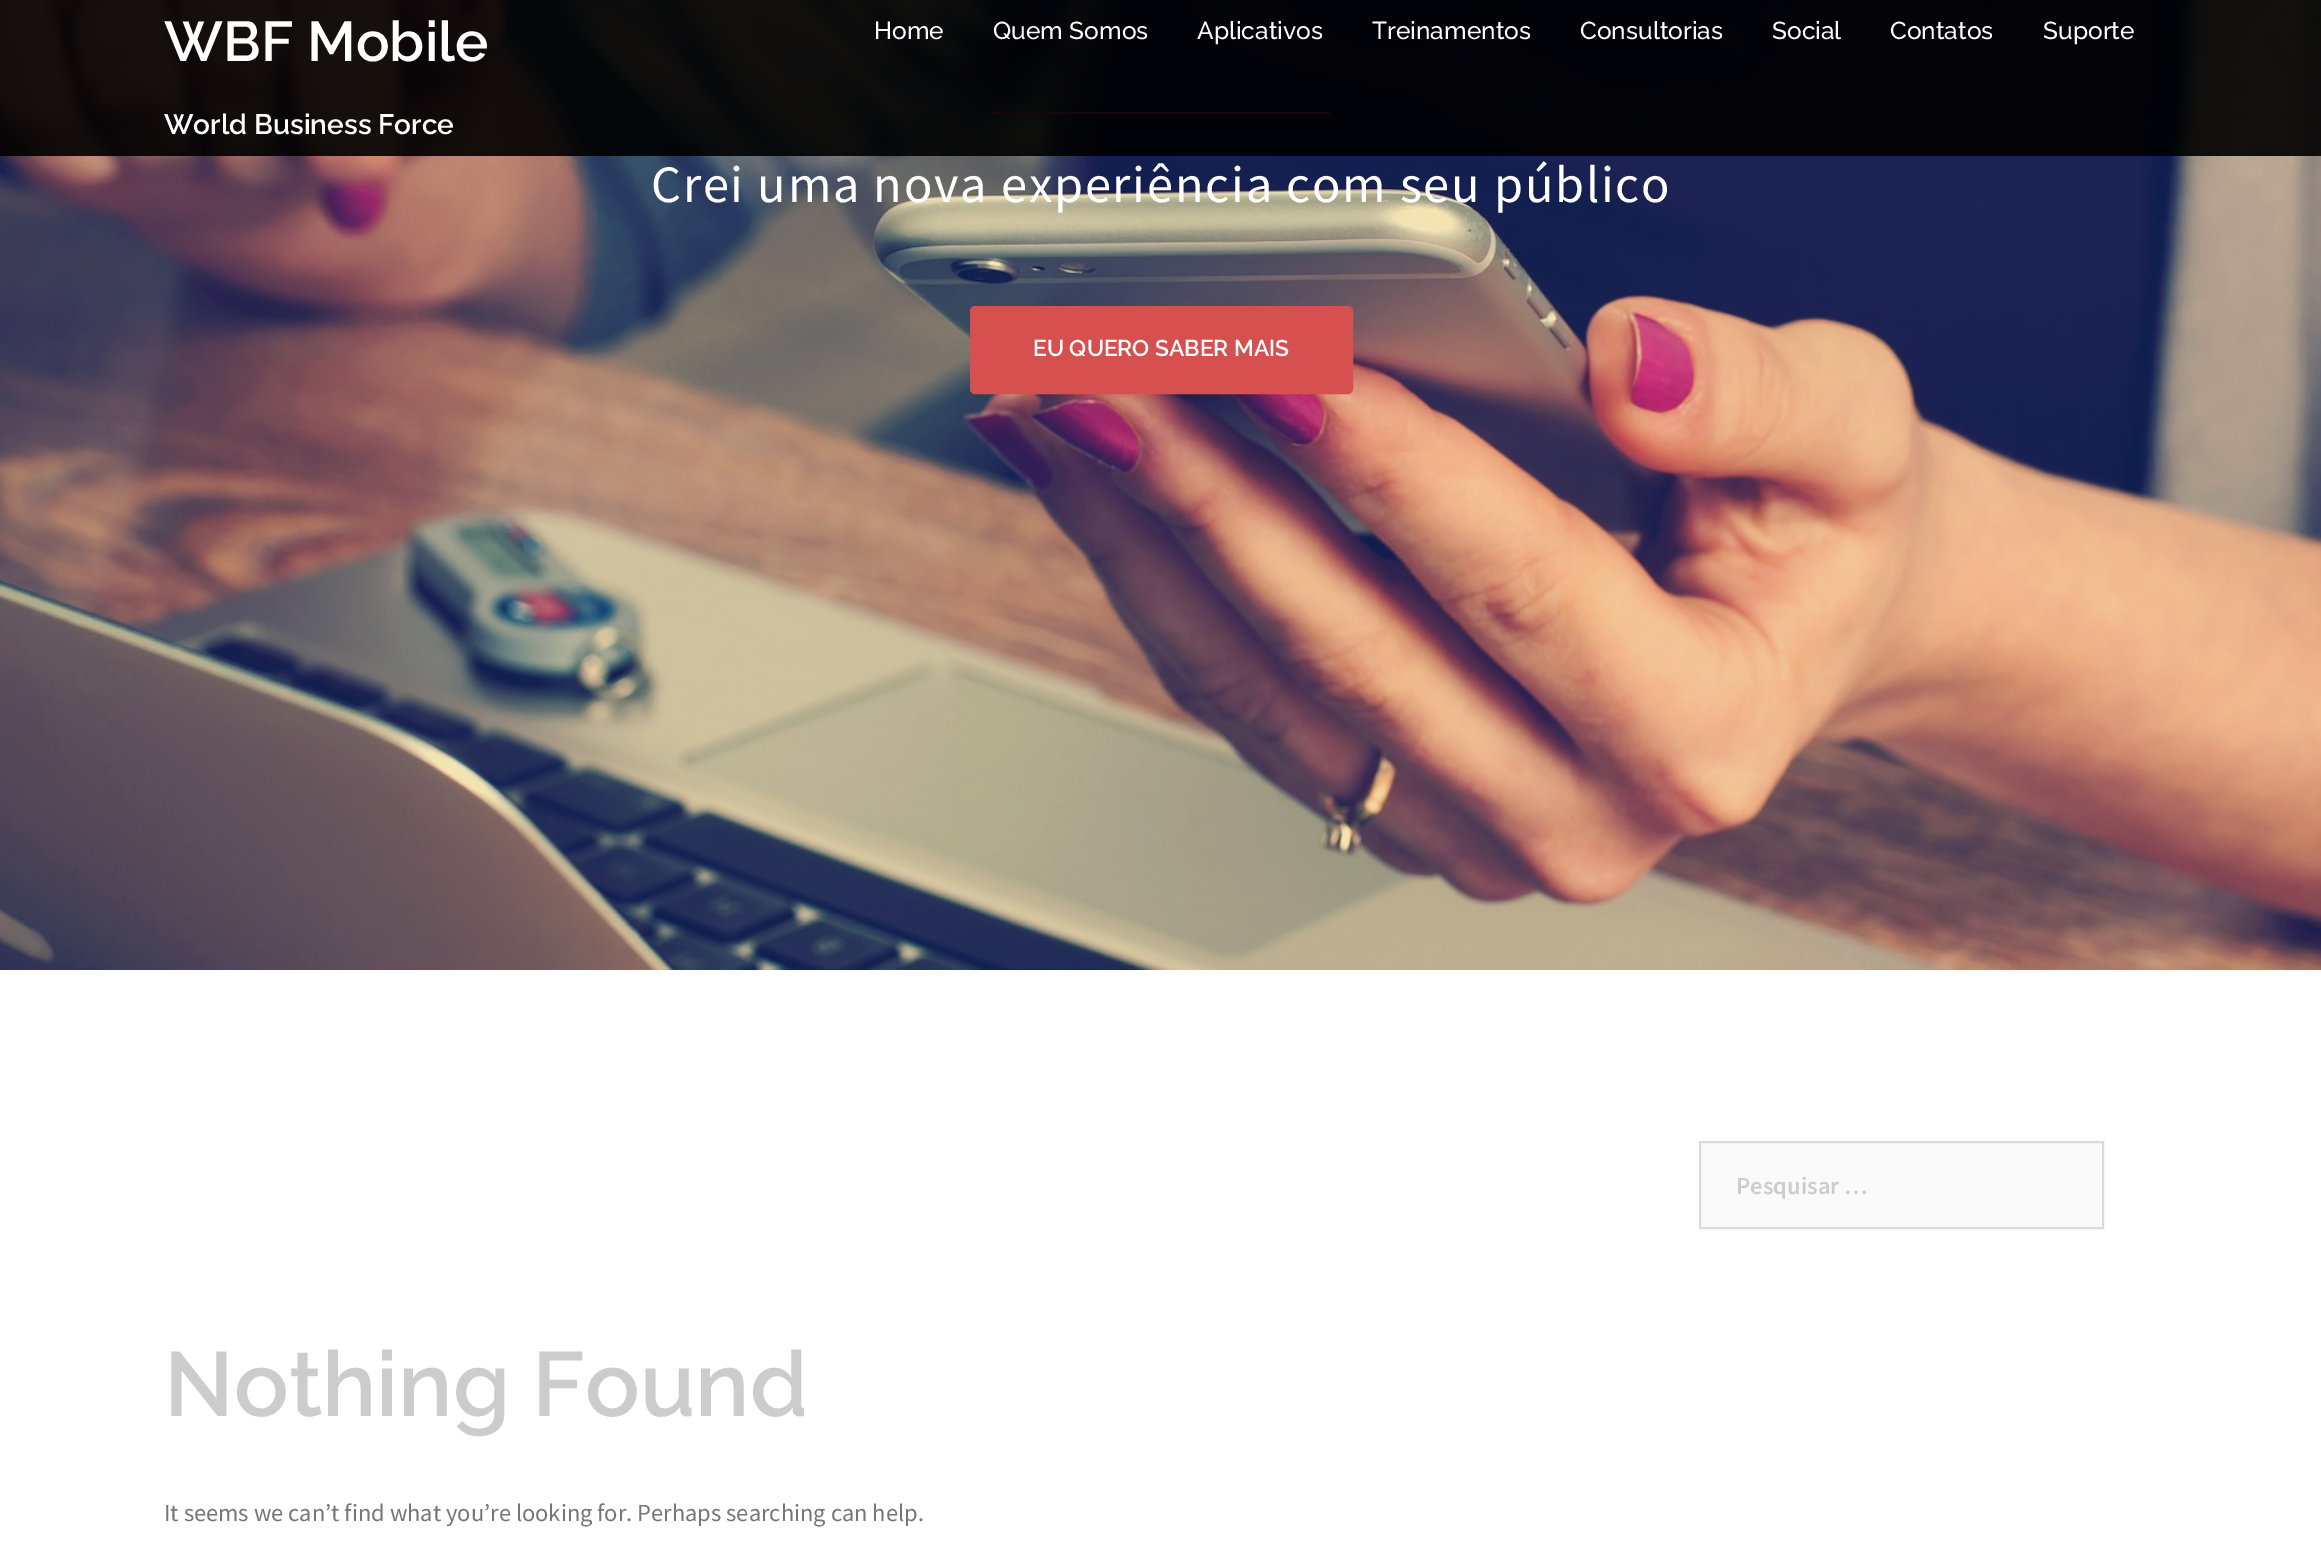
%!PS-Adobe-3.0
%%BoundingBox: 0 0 2321 1545
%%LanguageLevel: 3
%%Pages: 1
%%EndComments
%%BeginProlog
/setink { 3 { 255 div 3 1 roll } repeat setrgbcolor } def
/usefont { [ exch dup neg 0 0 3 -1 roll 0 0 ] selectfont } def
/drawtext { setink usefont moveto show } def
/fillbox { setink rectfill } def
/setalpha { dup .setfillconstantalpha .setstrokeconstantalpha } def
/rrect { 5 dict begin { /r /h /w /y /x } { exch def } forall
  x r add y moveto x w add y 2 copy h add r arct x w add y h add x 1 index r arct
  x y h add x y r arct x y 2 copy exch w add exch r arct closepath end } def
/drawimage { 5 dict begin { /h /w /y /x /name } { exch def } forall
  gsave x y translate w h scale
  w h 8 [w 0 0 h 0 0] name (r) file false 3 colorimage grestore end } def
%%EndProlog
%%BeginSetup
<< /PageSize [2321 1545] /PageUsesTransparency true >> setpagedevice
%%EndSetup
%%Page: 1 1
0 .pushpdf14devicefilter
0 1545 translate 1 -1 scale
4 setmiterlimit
0 0 2321 1545 255 255 255 fillbox
(assets/img1.rgb) 0 0 2321 970 drawimage
992 112 338 2 214 80 80 fillbox
0.9 setalpha
0 0 2321 156 0 0 0 fillbox
1 setalpha
(WBF Mobile) 164 61 /Raleway-SemiBold 56 255 255 255 drawtext
(World Business Force) 164 134 /Raleway-SemiBold 28 255 255 255 drawtext
(Home) 874 39 /Raleway-Medium 24.5 255 255 255 drawtext
(Quem Somos) 993 39 /Raleway-Medium 24.5 255 255 255 drawtext
(Aplicativos) 1197 39 /Raleway-Medium 24.5 255 255 255 drawtext
(Treinamentos) 1372 39 /Raleway-Medium 24.5 255 255 255 drawtext
(Consultorias) 1580 39 /Raleway-Medium 24.5 255 255 255 drawtext
(Social) 1772 39 /Raleway-Medium 24.5 255 255 255 drawtext
(Contatos) 1890 39 /Raleway-Medium 24.5 255 255 255 drawtext
(Suporte) 2043 39 /Raleway-Medium 24.5 255 255 255 drawtext
/SourceSansPro-Regular 52.5 usefont
651 202 moveto 1.75 0 (Crei uma nova experiência com seu público) ashow
214 80 80 setink
971 307 381 86 4 rrect gsave fill grestore
2 setlinewidth
stroke
(EU QUERO SABER MAIS) 1033 356 /Raleway-SemiBold 22.75 255 255 255 drawtext
250 250 250 setink
1700 1142 moveto 2103 1142 lineto 2103 1228 lineto 1700 1228 lineto closepath gsave fill grestore
219 219 219 setink
stroke
(Pesquisar …) 1736 1194 /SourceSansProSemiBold-SemiBold 24.5 204 204 204 drawtext
(Nothing Found) 164 1416 /Raleway-SemiBold 91 204 204 204 drawtext
(It seems we can’t find what you’re looking for. Perhaps searching can help.) 164 1521 /SourceSansPro-Regular 24.5 118 118 118 drawtext
.poppdf14devicefilter showpage
%%EOF
